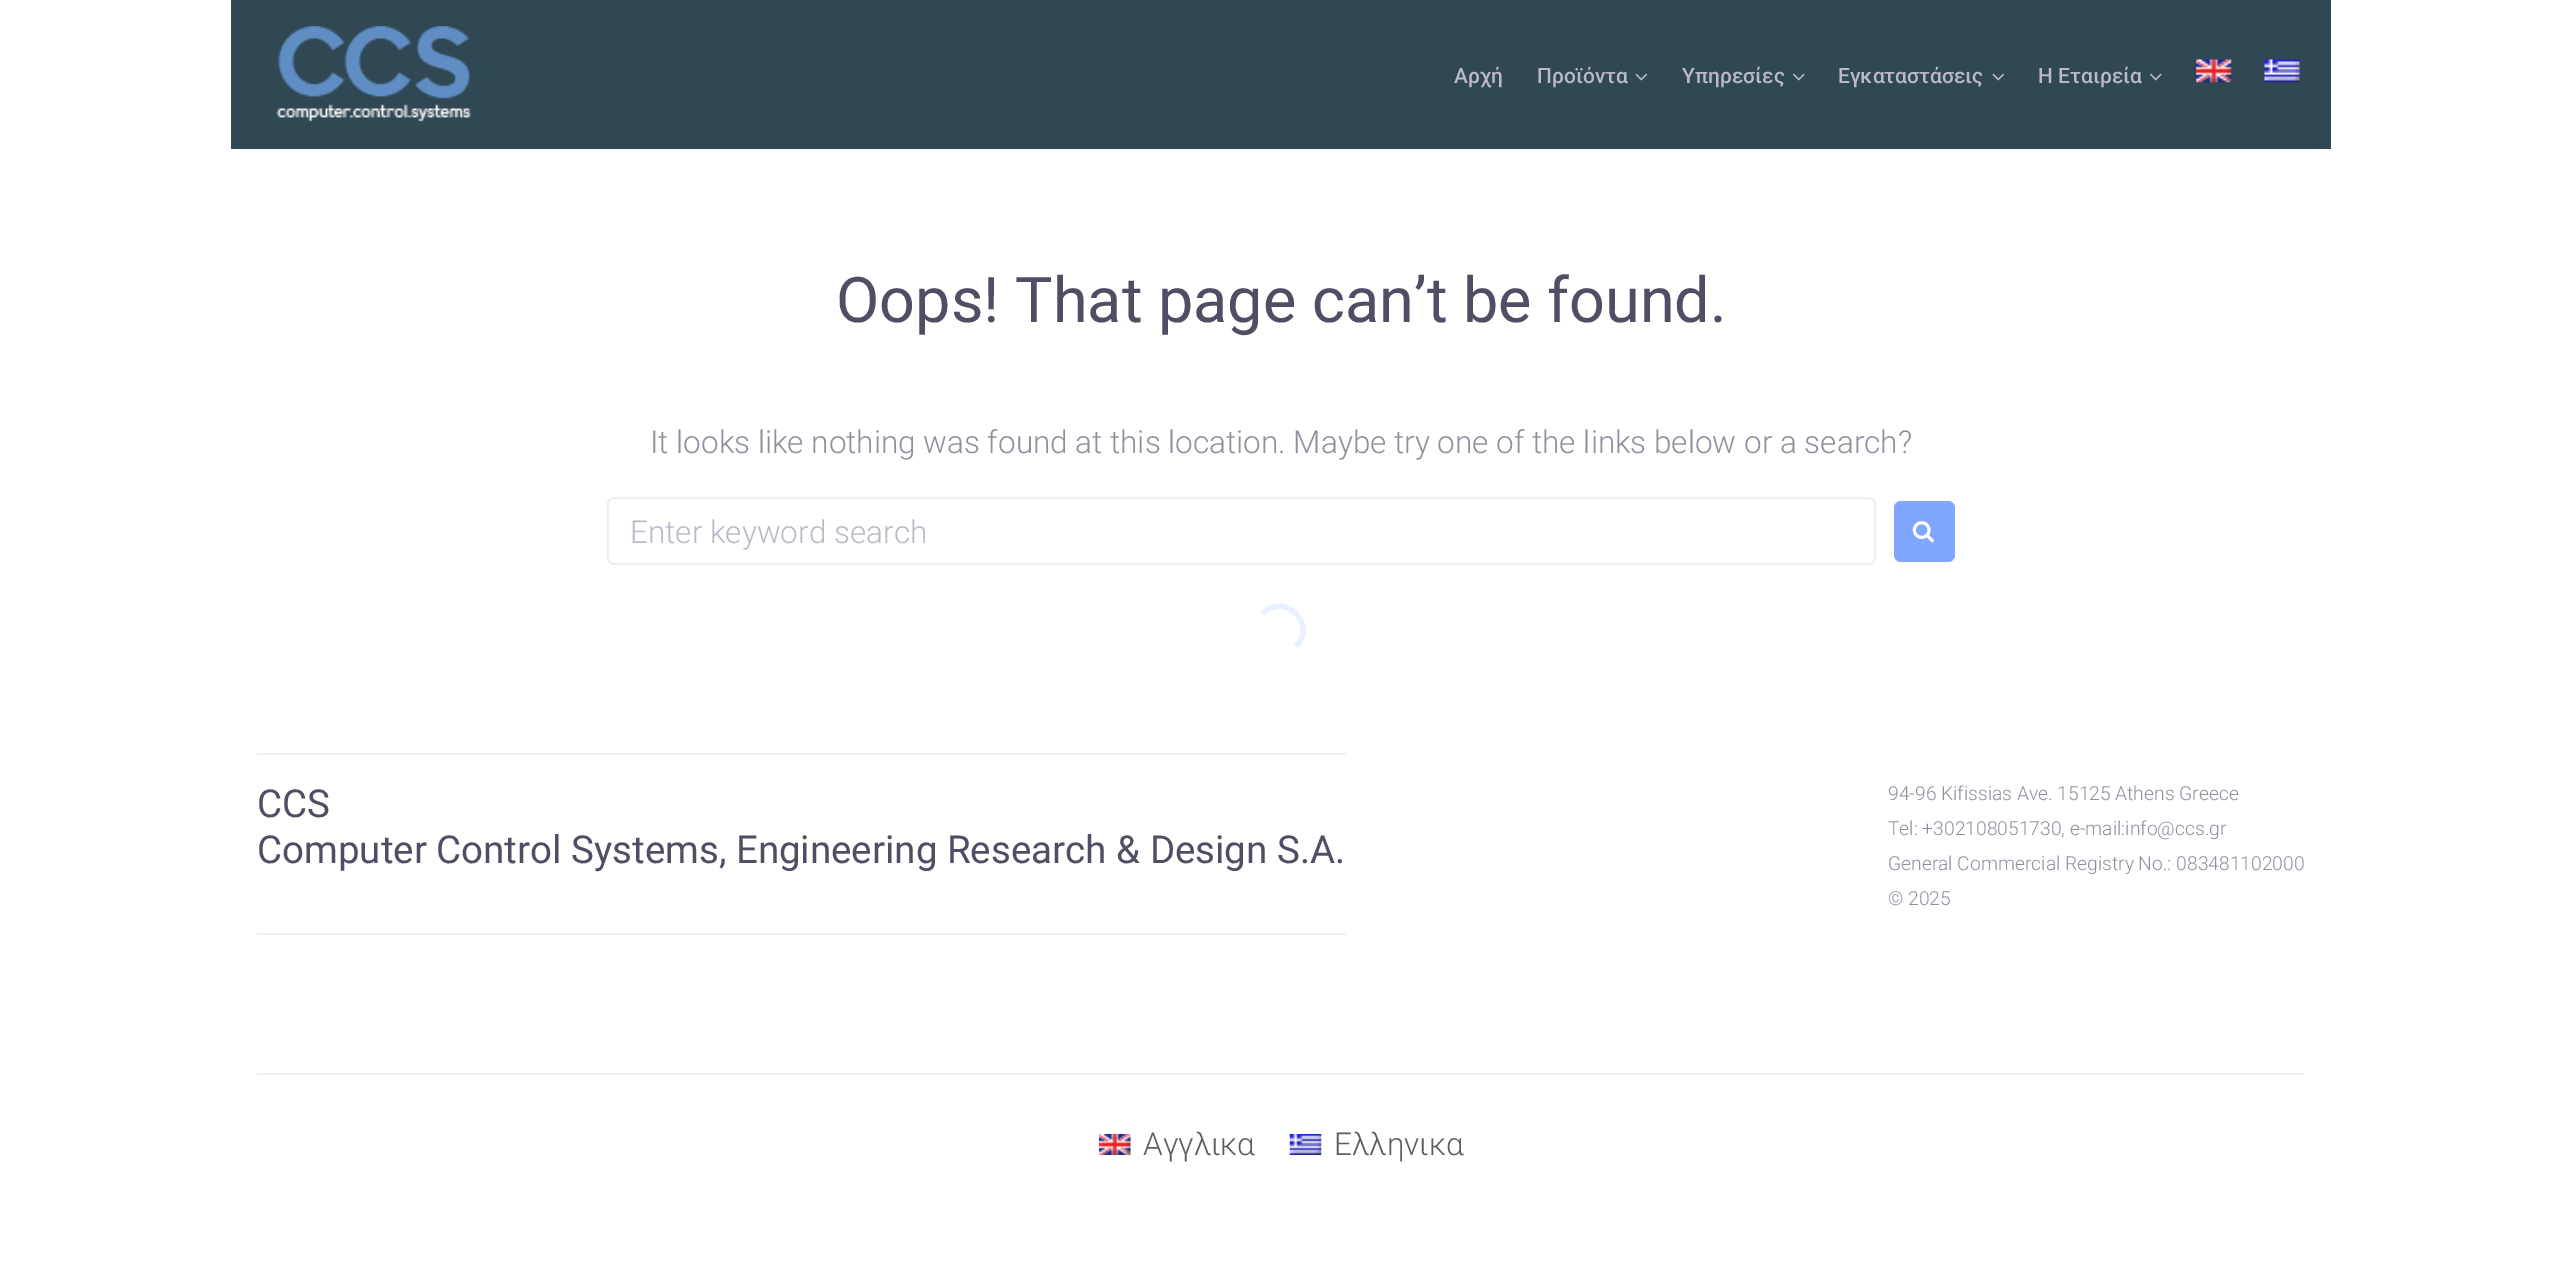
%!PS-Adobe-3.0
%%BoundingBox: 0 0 2562 1263
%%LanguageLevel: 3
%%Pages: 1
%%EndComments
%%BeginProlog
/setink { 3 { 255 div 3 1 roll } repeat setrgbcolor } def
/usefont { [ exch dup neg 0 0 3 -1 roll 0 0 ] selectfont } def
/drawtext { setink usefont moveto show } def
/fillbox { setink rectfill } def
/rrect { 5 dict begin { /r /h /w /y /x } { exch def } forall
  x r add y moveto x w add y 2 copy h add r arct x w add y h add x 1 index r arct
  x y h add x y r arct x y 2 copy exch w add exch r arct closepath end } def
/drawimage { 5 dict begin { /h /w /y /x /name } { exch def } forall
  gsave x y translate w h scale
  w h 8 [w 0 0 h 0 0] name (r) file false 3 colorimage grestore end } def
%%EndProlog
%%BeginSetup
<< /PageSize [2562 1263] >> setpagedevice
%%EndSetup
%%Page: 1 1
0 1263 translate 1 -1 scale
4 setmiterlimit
0 0 2562 1263 255 255 255 fillbox
231 0 2100 149 48 71 84 fillbox
(assets/img1.rgb) 276 26 196 96 drawimage
(Αρχή) 1454 83 /Roboto-Medium 21 187 185 199 drawtext
(Προϊόντα) 1537 83 /Roboto-Medium 21 187 185 199 drawtext
(assets/img2.rgb) 1635 73 12 8 drawimage
(Υπηρεσίες) 1682 83 /Roboto-Medium 21 187 185 199 drawtext
(assets/img3.rgb) 1793 73 12 8 drawimage
(Εγκαταστάσεις) 1838 83 /Roboto-Medium 21 187 185 199 drawtext
(assets/img2.rgb) 1992 73 12 8 drawimage
(Η Εταιρεία) 2038 83 /Roboto-Medium 21 187 185 199 drawtext
(assets/img3.rgb) 2150 73 12 8 drawimage
(assets/img4.rgb) 2196 59 36 24 drawimage
(assets/img5.rgb) 2264 59 36 24 drawimage
(Oops! That page can’t be found.) 836 322 /Roboto-Regular 63 80 78 100 drawtext
(It looks like nothing was found at this location. Maybe try one of the links below or a search?) 650 453 /Roboto-Light 31.5 145 143 158 drawtext
238 239 240 setink
2 setlinewidth
608 498 1267 66 6 rrect stroke
(Enter keyword search) 630 543 /Roboto-Light 31.5 187 185 199 drawtext
129 166 254 setink
1894 501 61 61 7 rrect fill
(assets/img6.rgb) 1912 521 22 22 drawimage
234 240 255 setink
5.2 setlinewidth
1262.5 613.5 moveto 1284.5 591.5 1318 624.5 1296 646.5 curveto stroke
257 753 1089 2 238 239 240 fillbox
(CCS) 257 817 /Roboto-Regular 38.5 80 78 100 drawtext
(Computer Control Systems, Engineering Research & Design S.A.) 257 863 /Roboto-Regular 38.5 80 78 100 drawtext
257 933 1089 2 238 239 240 fillbox
(94-96 Kifissias Ave. 15125 Athens Greece) 1888 800 /Roboto-Light 19.25 145 143 158 drawtext
(Tel: +302108051730, e-mail:info@ccs.gr) 1888 835 /Roboto-Light 19.25 145 143 158 drawtext
(General Commercial Registry No.: 083481102000) 1888 870 /Roboto-Light 19.25 145 143 158 drawtext
(© 2025) 1888 905 /Roboto-Light 19.25 145 143 158 drawtext
257 1073 2048 2 238 239 240 fillbox
(assets/img7.rgb) 1099 1134 32 21 drawimage
(Αγγλικα) 1143 1155 /Roboto-Light 31.5 94 94 94 drawtext
(assets/img8.rgb) 1289 1134 33 21 drawimage
(Ελληνικα) 1334 1155 /Roboto-Light 31.5 94 94 94 drawtext
showpage
%%EOF
